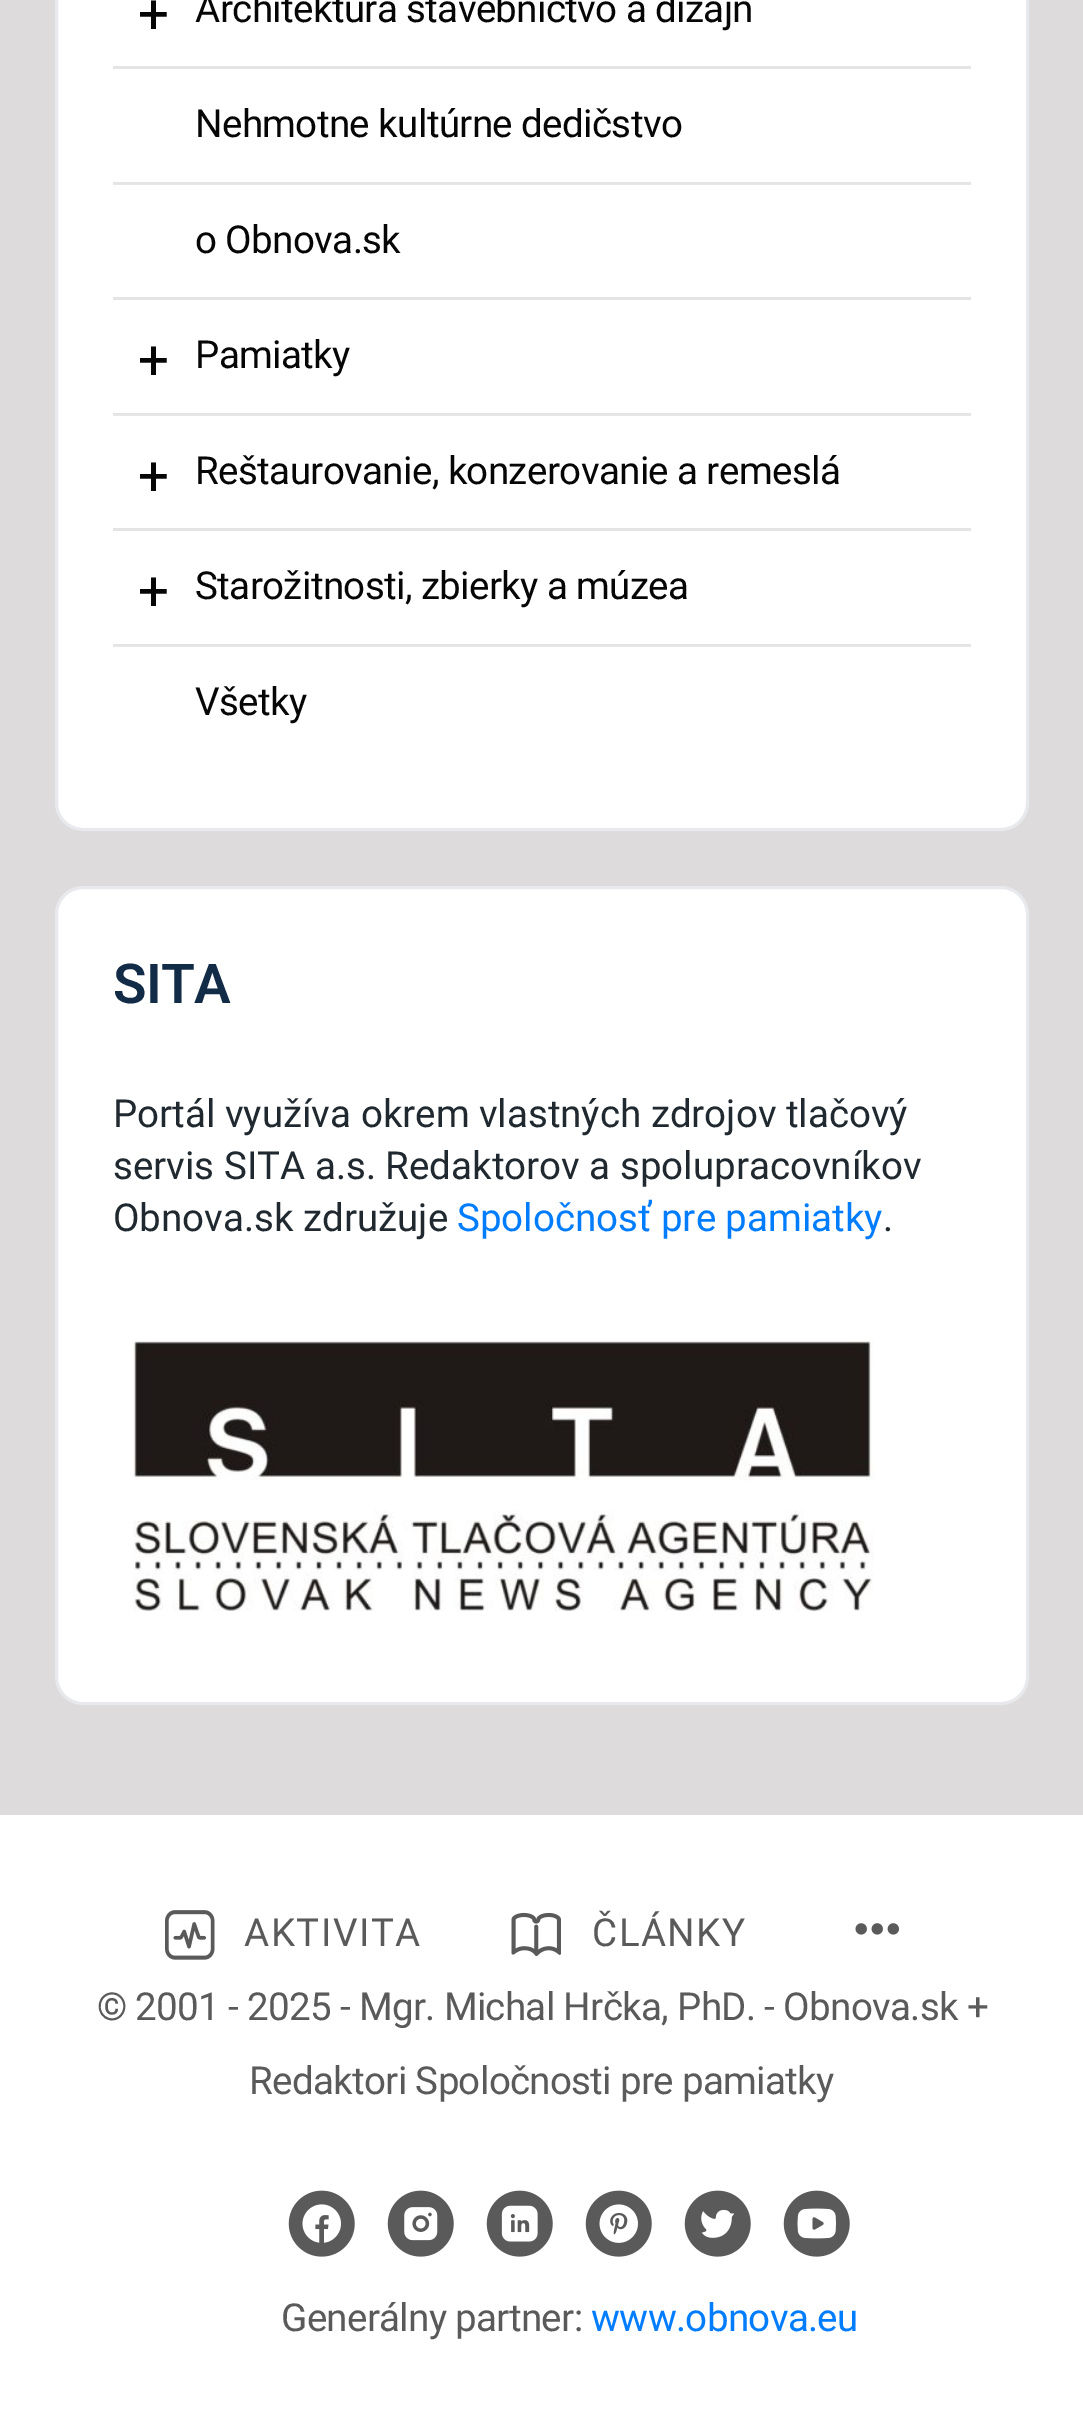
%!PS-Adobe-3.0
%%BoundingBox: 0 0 1083 2430
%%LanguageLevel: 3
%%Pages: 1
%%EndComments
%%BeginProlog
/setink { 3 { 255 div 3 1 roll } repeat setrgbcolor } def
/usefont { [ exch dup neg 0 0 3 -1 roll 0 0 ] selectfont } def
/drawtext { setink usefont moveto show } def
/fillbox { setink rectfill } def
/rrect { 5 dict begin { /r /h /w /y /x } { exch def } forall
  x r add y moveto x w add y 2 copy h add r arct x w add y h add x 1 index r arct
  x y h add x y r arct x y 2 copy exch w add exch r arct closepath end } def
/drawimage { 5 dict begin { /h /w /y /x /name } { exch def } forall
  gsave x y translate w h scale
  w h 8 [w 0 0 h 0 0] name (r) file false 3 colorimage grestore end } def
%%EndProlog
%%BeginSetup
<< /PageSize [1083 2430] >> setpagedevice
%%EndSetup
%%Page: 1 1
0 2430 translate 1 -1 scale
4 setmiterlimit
0 0 1083 2430 221 219 219 fillbox
255 255 255 setink
56.5 -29.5 971 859 26.5 rrect gsave fill grestore
231 233 236 setink
3 setlinewidth
stroke
113 66 858 3 228 228 228 fillbox
/Roboto-Regular 55 usefont
6 6 6 setink
138 33 moveto -0.6 0 (+) ashow
/Roboto-Regular 38.5 usefont
195 22 moveto -0.6 0 (Architektúra stavebnictvo a dizajn) ashow
113 182 858 2 228 228 228 fillbox
113 184 858 1 231 231 231 fillbox
6 6 6 setink
195 137 moveto -0.6 0 (Nehmotne kultúrne dedičstvo) ashow
113 297 858 3 228 228 228 fillbox
6 6 6 setink
195 253 moveto -0.6 0 (o Obnova.sk) ashow
113 413 858 2 228 228 228 fillbox
113 415 858 1 231 231 231 fillbox
/Roboto-Regular 55 usefont
6 6 6 setink
138 379 moveto -0.6 0 (+) ashow
/Roboto-Regular 38.5 usefont
195 368 moveto -0.6 0 (Pamiatky) ashow
113 528 858 3 228 228 228 fillbox
/Roboto-Regular 55 usefont
6 6 6 setink
138 495 moveto -0.6 0 (+) ashow
/Roboto-Regular 38.5 usefont
195 484 moveto -0.6 0 (Reštaurovanie, konzerovanie a remeslá) ashow
113 644 858 2 228 228 228 fillbox
113 646 858 1 231 231 231 fillbox
/Roboto-Regular 55 usefont
6 6 6 setink
138 610 moveto -0.6 0 (+) ashow
/Roboto-Regular 38.5 usefont
195 599 moveto -0.6 0 (Starožitnosti, zbierky a múzea) ashow
195 715 moveto -0.6 0 (Všetky) ashow
255 255 255 setink
56.5 887.5 971 816 26.5 rrect gsave fill grestore
231 233 236 setink
stroke
/Roboto-SemiBold 55 usefont
18 43 70 setink
113 1003 moveto -0.65 0 (SITA) ashow
(Portál využíva okrem vlastných zdrojov tlačový) 113 1127 /Roboto-Regular 38.5 32 41 48 drawtext
(servis SITA a.s. Redaktorov a spolupracovníkov) 113 1179 /Roboto-Regular 38.5 32 41 48 drawtext
(Obnova.sk združuje) 113 1231 /Roboto-Regular 38.5 32 41 48 drawtext
(Spoločnosť pre pamiatky) 457 1231 /Roboto-Regular 38.5 0 124 255 drawtext
(.) 883 1231 /Roboto-Regular 38.5 32 41 48 drawtext
(assets/img1.rgb) 133 1340 741 271 drawimage
0 1815 1083 615 255 255 255 fillbox
(assets/img2.rgb) 165 1910 50 50 drawimage
90 90 90 setink
244 1946 moveto 1.5 0 (AKTIVITA) ashow
(assets/img3.rgb) 511 1912 50 45 drawimage
592 1946 moveto 1.5 0 (ČLÁNKY) ashow
(assets/img4.rgb) 855 1923 44 12 drawimage
97 2020 moveto -0.65 0 (© 2001 - 2025 - Mgr. Michal Hrčka, PhD. - Obnova.sk +) ashow
249 2094 moveto -0.65 0 (Redaktori Spoločnosti pre pamiatky) ashow
(assets/img5.rgb) 288 2190 67 67 drawimage
(assets/img6.rgb) 387 2190 67 67 drawimage
(assets/img7.rgb) 486 2190 67 67 drawimage
(assets/img8.rgb) 585 2190 67 67 drawimage
(assets/img9.rgb) 684 2190 67 67 drawimage
(assets/img10.rgb) 783 2190 67 67 drawimage
281 2331 moveto -0.65 0 (Generálny partner:) ashow
0 124 255 setink
591 2331 moveto -0.65 0 (www.obnova.eu) ashow
showpage
%%EOF
